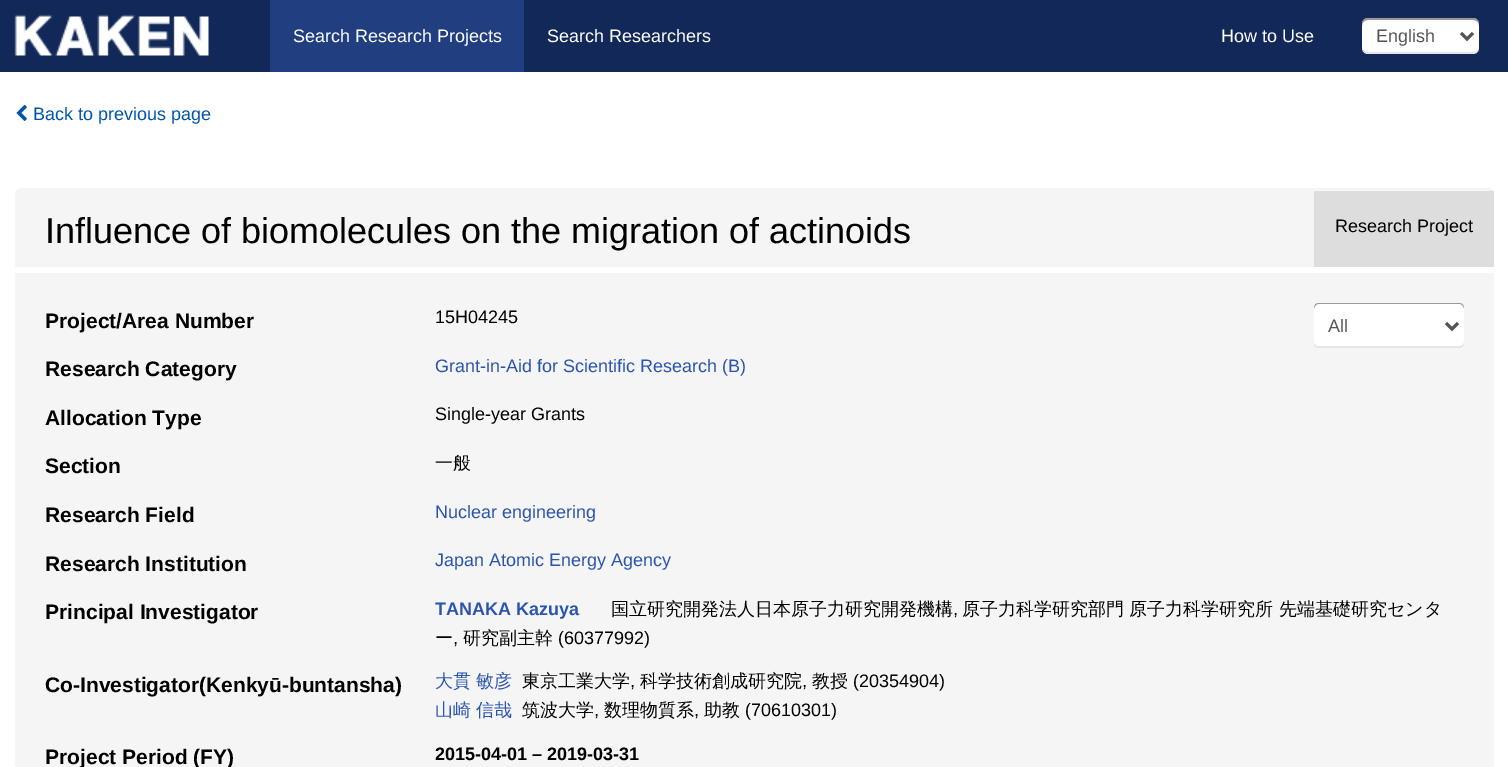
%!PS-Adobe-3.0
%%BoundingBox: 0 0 1508 767
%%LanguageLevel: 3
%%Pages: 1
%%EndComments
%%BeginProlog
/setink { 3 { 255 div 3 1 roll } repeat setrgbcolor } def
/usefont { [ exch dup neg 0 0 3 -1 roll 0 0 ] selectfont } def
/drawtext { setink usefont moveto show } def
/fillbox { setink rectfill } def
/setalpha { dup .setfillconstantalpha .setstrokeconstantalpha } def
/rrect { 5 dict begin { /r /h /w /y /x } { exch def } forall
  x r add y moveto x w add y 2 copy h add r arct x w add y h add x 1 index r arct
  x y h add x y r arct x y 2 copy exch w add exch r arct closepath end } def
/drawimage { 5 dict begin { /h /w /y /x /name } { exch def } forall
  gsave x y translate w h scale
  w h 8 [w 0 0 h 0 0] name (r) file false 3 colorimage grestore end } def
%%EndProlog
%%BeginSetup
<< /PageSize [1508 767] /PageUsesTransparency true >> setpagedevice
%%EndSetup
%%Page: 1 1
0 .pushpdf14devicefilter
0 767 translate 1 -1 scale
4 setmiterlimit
0 0 1508 767 255 255 255 fillbox
0 0 1508 72 18 40 88 fillbox
(assets/img1.rgb) 14 14 195 42 drawimage
270 0 254 72 32 62 128 fillbox
(Search Research Projects) 293 42 /LiberationSans-Regular 18 255 255 255 drawtext
(Search Researchers) 547 42 /LiberationSans-Regular 18 255 255 255 drawtext
(How to Use) 1221 42 /LiberationSans-Regular 18 255 255 255 drawtext
1362 18 117 36 6 rrect fill
0.1 setalpha
0 0 0 setink
1362 46 moveto 1362 48 lineto 1362 51 1365 54 1368 54 curveto 1473 54 lineto 1476 54 1479 51 1479 48 curveto 1479 46 lineto 1479 50 1476 52 1473 52 curveto 1368 52 lineto 1365 52 1362 50 1362 46 curveto closepath fill
0.4 setalpha
1368 20 moveto 1473 20 lineto 1476 20 1479 22 1479 26 curveto 1479 24 lineto 1479 21 1476 18 1473 18 curveto 1368 18 lineto 1365 18 1362 21 1362 24 curveto 1362 26 lineto 1362 22 1365 20 1368 20 curveto closepath fill
1 setalpha
85 85 85 setink
3 setlinewidth
1461 33 moveto 1467 39 lineto 1473 33 lineto stroke
(English) 1376 42 /LiberationSans-Regular 18 85 85 85 drawtext
(assets/img2.rgb) 16 104 11 17 drawimage
(Back to previous page) 33 120 /LiberationSans-Regular 18 0 85 170 drawtext
245 245 245 setink
15 188 1479 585 6 rrect fill
1314 191 180 76 221 221 221 fillbox
(Influence of biomolecules on the migration of actinoids) 45 243 /LiberationSans-Regular 36 0 0 0 drawtext
(Research Project) 1335 232 /LiberationSans-Regular 18 0 0 0 drawtext
15 267 1479 6 255 255 255 fillbox
(Project/Area Number) 45 328 /LiberationSans-Bold 21 0 0 0 drawtext
(15H04245) 435 323 /LiberationSans-Regular 18 0 0 0 drawtext
(Research Category) 45 376 /LiberationSans-Bold 21 0 0 0 drawtext
(Grant-in-Aid for Scientific Research \(B\)) 435 372 /LiberationSans-Regular 18 41 84 175 drawtext
(Allocation Type) 45 425 /LiberationSans-Bold 21 0 0 0 drawtext
(Single-year Grants) 435 420 /LiberationSans-Regular 18 0 0 0 drawtext
(Section) 45 473 /LiberationSans-Bold 21 0 0 0 drawtext
(一般) 435 469 /WenQuanYiZenHei-Medium 18 0 0 0 drawtext
(Research Field) 45 522 /LiberationSans-Bold 21 0 0 0 drawtext
(Nuclear engineering) 435 518 /LiberationSans-Regular 18 41 84 175 drawtext
(Research Institution) 45 571 /LiberationSans-Bold 21 0 0 0 drawtext
(Japan Atomic Energy Agency) 435 566 /LiberationSans-Regular 18 41 84 175 drawtext
(Principal Investigator) 45 619 /LiberationSans-Bold 21 0 0 0 drawtext
(TANAKA Kazuya) 435 615 /LiberationSans-Bold 18 41 84 175 drawtext
(国立研究開発法人日本原子力研究開発機構) 611 615 /WenQuanYiZenHei-Medium 18 0 0 0 drawtext
(,) 953 615 /LiberationSans-Regular 18 0 0 0 drawtext
(原子力科学研究部門 原子力科学研究所 先端基礎研究センタ) 962 615 /WenQuanYiZenHei-Medium 18 0 0 0 drawtext
(ー) 435 644 /WenQuanYiZenHei-Medium 18 0 0 0 drawtext
(研究副主幹) 463 644 /WenQuanYiZenHei-Medium 18 0 0 0 drawtext
(\(60377992\)) 558 644 /LiberationSans-Regular 18 0 0 0 drawtext
(,) 453 644 /LiberationSans-Regular 18 0 0 0 drawtext
(Co-Investigator\(Kenkyū-buntansha\)) 45 692 /LiberationSans-Bold 21 0 0 0 drawtext
(大貫 敏彦) 435 687 /WenQuanYiZenHei-Medium 18 41 84 175 drawtext
(東京工業大学) 522 687 /WenQuanYiZenHei-Medium 18 0 0 0 drawtext
(,) 630 687 /LiberationSans-Regular 18 0 0 0 drawtext
(科学技術創成研究院) 640 687 /WenQuanYiZenHei-Medium 18 0 0 0 drawtext
(,) 802 687 /LiberationSans-Regular 18 0 0 0 drawtext
(教授) 812 687 /WenQuanYiZenHei-Medium 18 0 0 0 drawtext
(\(20354904\)) 853 687 /LiberationSans-Regular 18 0 0 0 drawtext
(山崎 信哉) 435 716 /WenQuanYiZenHei-Medium 18 41 84 175 drawtext
(筑波大学) 522 716 /WenQuanYiZenHei-Medium 18 0 0 0 drawtext
(,) 594 716 /LiberationSans-Regular 18 0 0 0 drawtext
(数理物質系) 604 716 /WenQuanYiZenHei-Medium 18 0 0 0 drawtext
(,) 694 716 /LiberationSans-Regular 18 0 0 0 drawtext
(助教) 704 716 /WenQuanYiZenHei-Medium 18 0 0 0 drawtext
(\(70610301\)) 745 716 /LiberationSans-Regular 18 0 0 0 drawtext
(Project Period \(FY\)) 45 764 /LiberationSans-Bold 21 0 0 0 drawtext
(2015-04-01 – 2019-03-31) 435 760 /LiberationSans-Bold 18 0 0 0 drawtext
255 255 255 setink
1314 303 150 45 5 rrect fill
0.1 setalpha
0 0 0 setink
1314 342 moveto 1314 343 lineto 1314 346 1316 348 1319 348 curveto 1459 348 lineto 1462 348 1464 346 1464 343 curveto 1464 342 lineto 1464 344 1462 346 1460 346 curveto 1318 346 lineto 1316 346 1314 344 1314 342 curveto closepath fill
0.4 setalpha
1318 304 moveto 1460 304 lineto 1462 304 1464 307 1464 309 curveto 1464 308 lineto 1464 305 1462 303 1459 303 curveto 1319 303 lineto 1316 303 1314 305 1314 308 curveto 1314 309 lineto 1314 307 1316 304 1318 304 curveto closepath fill
1 setalpha
85 85 85 setink
1446 323 moveto 1452 329 lineto 1458 323 lineto stroke
(All) 1328 332 /LiberationSans-Regular 18 85 85 85 drawtext
.poppdf14devicefilter showpage
%%EOF
